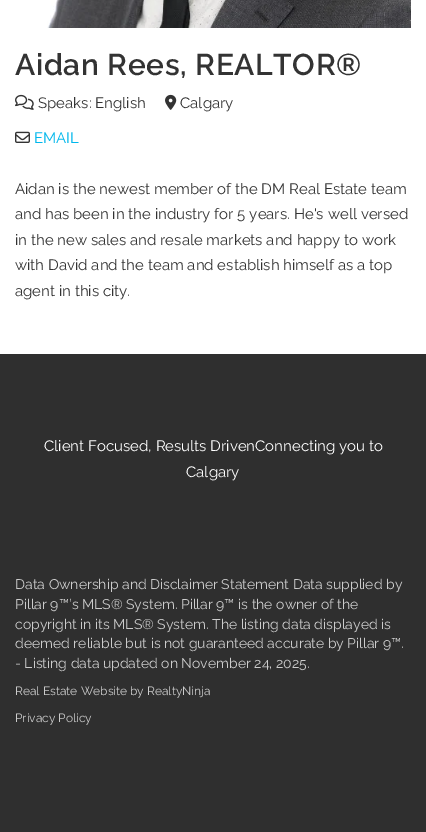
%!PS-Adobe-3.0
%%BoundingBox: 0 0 426 832
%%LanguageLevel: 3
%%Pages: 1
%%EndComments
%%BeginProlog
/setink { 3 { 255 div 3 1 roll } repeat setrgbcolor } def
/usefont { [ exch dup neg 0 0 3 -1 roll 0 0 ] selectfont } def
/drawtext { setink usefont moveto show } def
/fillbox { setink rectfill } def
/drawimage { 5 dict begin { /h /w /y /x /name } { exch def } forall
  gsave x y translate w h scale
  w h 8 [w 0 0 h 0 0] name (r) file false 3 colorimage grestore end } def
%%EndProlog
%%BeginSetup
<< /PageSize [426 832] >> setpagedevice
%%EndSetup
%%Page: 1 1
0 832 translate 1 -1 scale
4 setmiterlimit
0 0 426 832 255 255 255 fillbox
(assets/img1.rgb) 47 0 364 28 drawimage
/Raleway-SemiBold 30 usefont
51 51 51 setink
15 75 moveto 0.6 0 (Aidan Rees, REALTOR®) ashow
(assets/img2.rgb) 15 94 19 16 drawimage
(Speaks: English) 38 108 /Raleway-Regular 15 51 51 51 drawtext
(assets/img3.rgb) 165 94 12 16 drawimage
(Calgary) 180 108 /Raleway-Regular 15 51 51 51 drawtext
(assets/img4.rgb) 15 131 15 12 drawimage
(EMAIL) 34 143 /Raleway-Regular 15 0 183 236 drawtext
(Aidan is the newest member of the DM Real Estate team) 15 194 /Raleway-Regular 15 51 51 51 drawtext
(and has been in the industry for 5 years. He's well versed) 15 219 /Raleway-Regular 15 51 51 51 drawtext
(in the new sales and resale markets and happy to work) 15 245 /Raleway-Regular 15 51 51 51 drawtext
(with David and the team and establish himself as a top) 15 270 /Raleway-Regular 15 51 51 51 drawtext
(agent in this city.) 15 296 /Raleway-Regular 15 51 51 51 drawtext
0 354 426 478 47 47 47 fillbox
(Client Focused, Results DrivenConnecting you to) 44 451 /Raleway-Regular 15 255 255 255 drawtext
(Calgary) 186 477 /Raleway-Regular 15 255 255 255 drawtext
(Data Ownership and Disclaimer Statement Data supplied by) 15 589 /Raleway-Regular 14 204 204 204 drawtext
(Pillar 9™’s MLS® System. Pillar 9™ is the owner of the) 15 609 /Raleway-Regular 14 204 204 204 drawtext
(copyright in its MLS® System. The listing data displayed is) 15 629 /Raleway-Regular 14 204 204 204 drawtext
(deemed reliable but is not guaranteed accurate by Pillar 9™.) 15 648 /Raleway-Regular 14 204 204 204 drawtext
(- Listing data updated on November 24, 2025.) 15 668 /Raleway-Regular 14 204 204 204 drawtext
(Real Estate Website by RealtyNinja) 15 695 /Raleway-Regular 12 204 204 204 drawtext
(Privacy Policy) 15 722 /Raleway-Regular 12 204 204 204 drawtext
showpage
%%EOF
